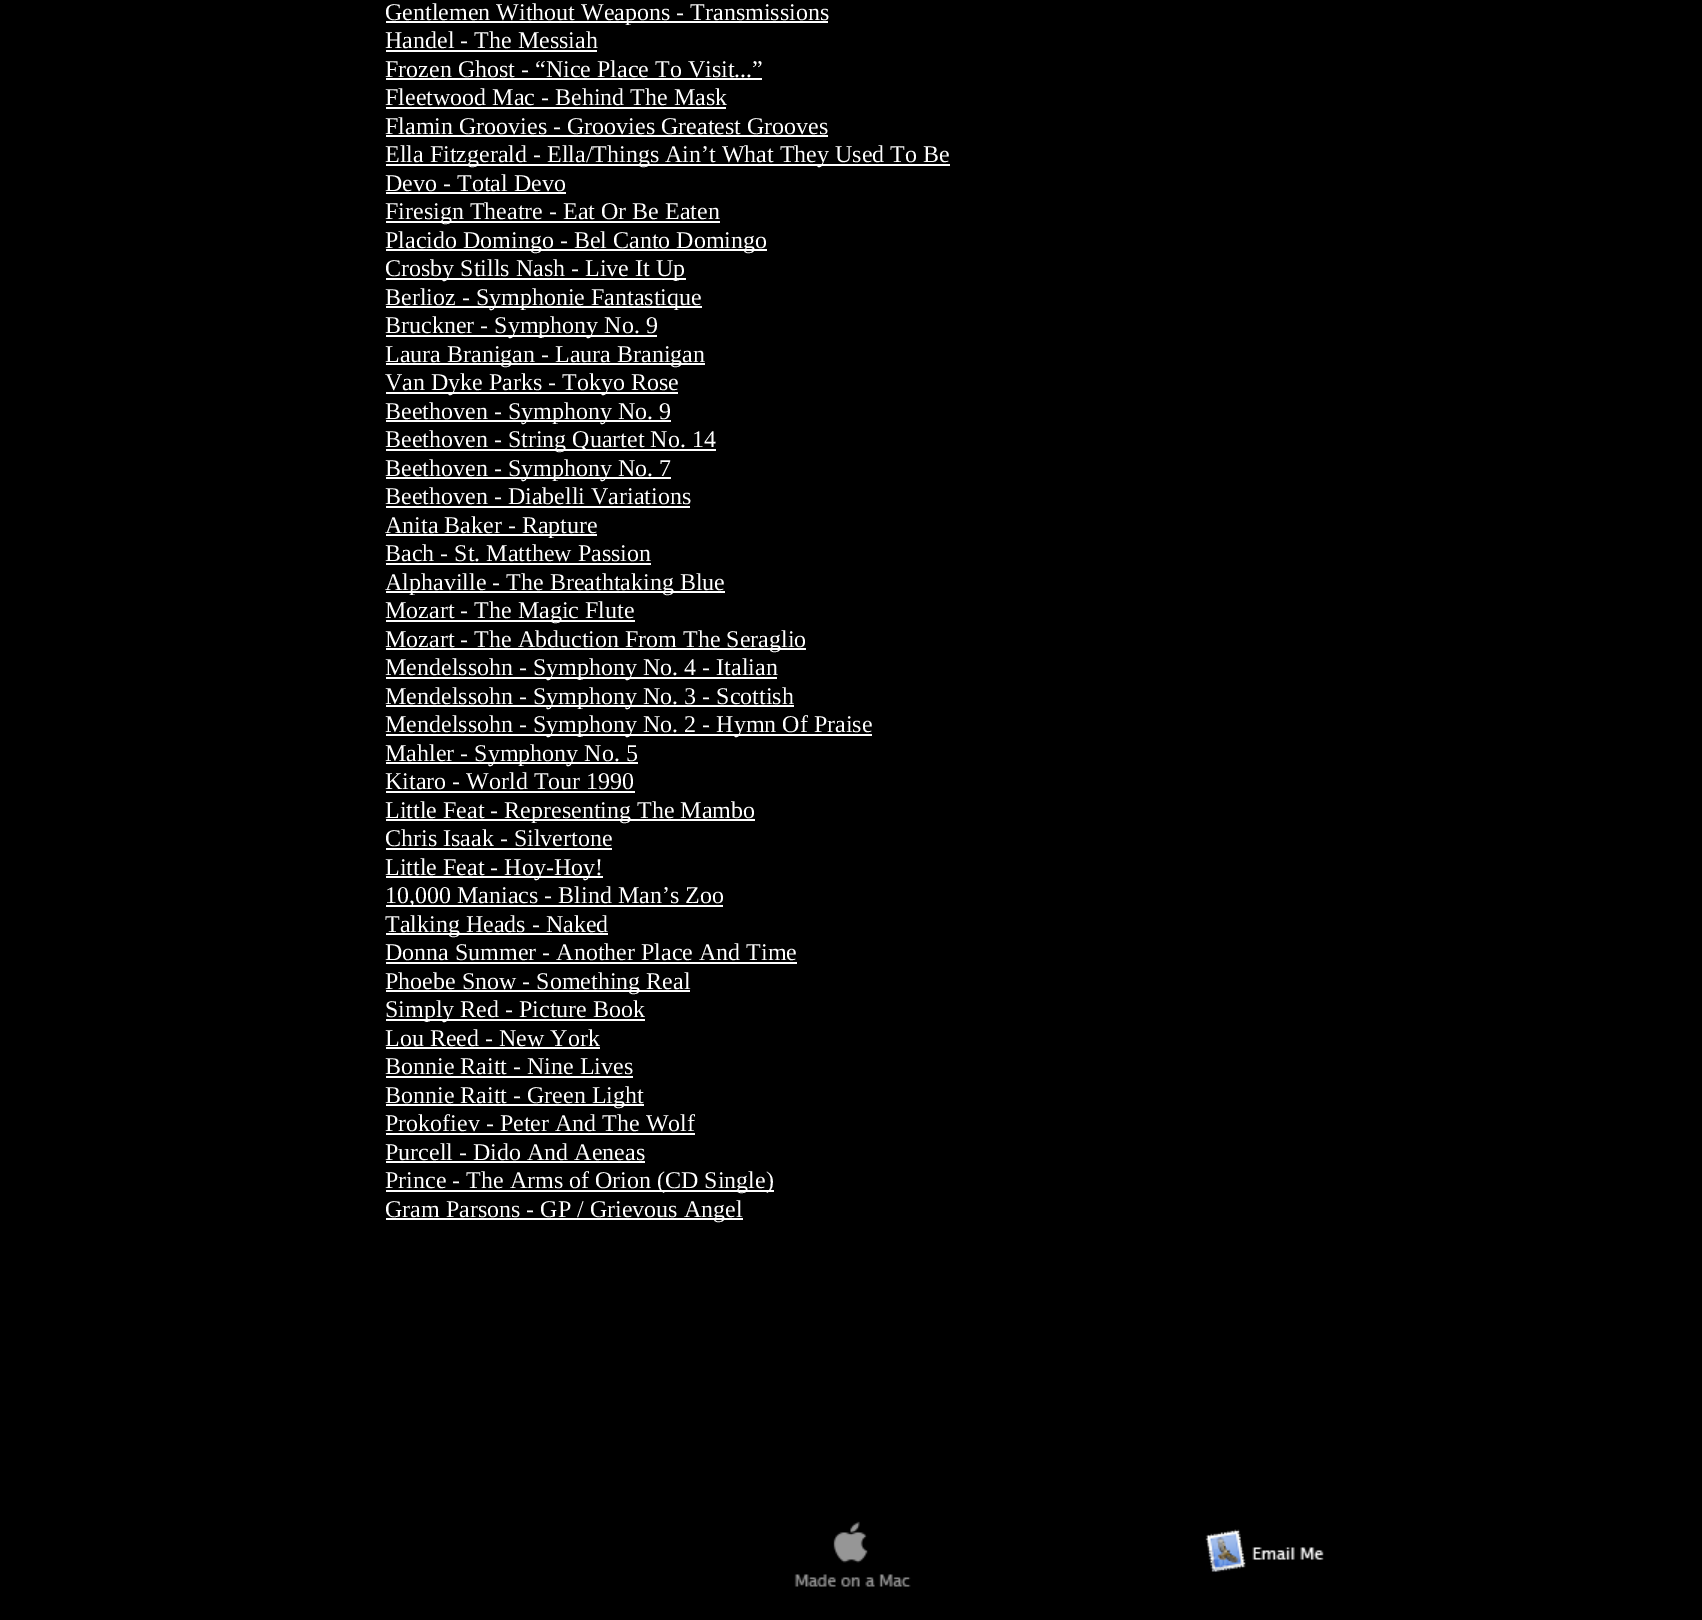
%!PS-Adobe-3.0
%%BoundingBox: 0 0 1702 1620
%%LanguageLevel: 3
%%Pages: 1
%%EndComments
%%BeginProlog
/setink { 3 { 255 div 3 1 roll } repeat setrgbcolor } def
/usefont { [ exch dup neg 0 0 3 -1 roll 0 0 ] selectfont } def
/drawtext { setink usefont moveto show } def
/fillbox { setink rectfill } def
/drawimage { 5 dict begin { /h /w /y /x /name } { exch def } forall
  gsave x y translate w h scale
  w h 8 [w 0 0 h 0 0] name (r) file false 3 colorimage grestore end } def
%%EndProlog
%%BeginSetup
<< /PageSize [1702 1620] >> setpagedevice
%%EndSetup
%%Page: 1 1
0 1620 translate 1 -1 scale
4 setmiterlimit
0 0 1702 1620 0 0 0 fillbox
386 21 442 2 255 255 255 fillbox
(Gentlemen Without Weapons - Transmissions) 385 20 /LiberationSerif-Regular 24 255 255 255 drawtext
(Handel - The Messiah) 385 48 /LiberationSerif-Regular 24 255 255 255 drawtext
386 50 211 2 255 255 255 fillbox
(Frozen Ghost - “Nice Place To Visit...”) 385 77 /LiberationSerif-Regular 24 255 255 255 drawtext
386 78 376 2 255 255 255 fillbox
(Fleetwood Mac - Behind The Mask) 385 105 /LiberationSerif-Regular 24 255 255 255 drawtext
386 107 340 2 255 255 255 fillbox
(Flamin Groovies - Groovies Greatest Grooves) 385 134 /LiberationSerif-Regular 24 255 255 255 drawtext
386 135 442 2 255 255 255 fillbox
386 164 564 2 255 255 255 fillbox
(Ella Fitzgerald - Ella/Things Ain’t What They Used To Be) 385 162 /LiberationSerif-Regular 24 255 255 255 drawtext
(Devo - Total Devo) 385 191 /LiberationSerif-Regular 24 255 255 255 drawtext
386 192 180 2 255 255 255 fillbox
386 221 334 2 255 255 255 fillbox
(Firesign Theatre - Eat Or Be Eaten) 385 219 /LiberationSerif-Regular 24 255 255 255 drawtext
386 249 381 2 255 255 255 fillbox
(Placido Domingo - Bel Canto Domingo) 385 248 /LiberationSerif-Regular 24 255 255 255 drawtext
386 278 300 2 255 255 255 fillbox
(Crosby Stills Nash - Live It Up) 385 276 /LiberationSerif-Regular 24 255 255 255 drawtext
386 306 316 2 255 255 255 fillbox
(Berlioz - Symphonie Fantastique) 385 305 /LiberationSerif-Regular 24 255 255 255 drawtext
386 335 271 2 255 255 255 fillbox
(Bruckner - Symphony No. 9) 385 333 /LiberationSerif-Regular 24 255 255 255 drawtext
386 363 319 2 255 255 255 fillbox
(Laura Branigan - Laura Branigan) 385 362 /LiberationSerif-Regular 24 255 255 255 drawtext
386 392 292 2 255 255 255 fillbox
(Van Dyke Parks - Tokyo Rose) 385 390 /LiberationSerif-Regular 24 255 255 255 drawtext
386 420 285 2 255 255 255 fillbox
(Beethoven - Symphony No. 9) 385 419 /LiberationSerif-Regular 24 255 255 255 drawtext
386 449 330 2 255 255 255 fillbox
(Beethoven - String Quartet No. 14) 385 447 /LiberationSerif-Regular 24 255 255 255 drawtext
386 477 285 2 255 255 255 fillbox
(Beethoven - Symphony No. 7) 385 476 /LiberationSerif-Regular 24 255 255 255 drawtext
(Beethoven - Diabelli Variations) 385 504 /LiberationSerif-Regular 24 255 255 255 drawtext
386 506 304 2 255 255 255 fillbox
386 534 211 2 255 255 255 fillbox
(Anita Baker - Rapture) 385 533 /LiberationSerif-Regular 24 255 255 255 drawtext
(Bach - St. Matthew Passion) 385 561 /LiberationSerif-Regular 24 255 255 255 drawtext
386 563 265 2 255 255 255 fillbox
386 591 339 2 255 255 255 fillbox
(Alphaville - The Breathtaking Blue) 385 590 /LiberationSerif-Regular 24 255 255 255 drawtext
386 620 249 2 255 255 255 fillbox
(Mozart - The Magic Flute) 385 618 /LiberationSerif-Regular 24 255 255 255 drawtext
386 648 420 2 255 255 255 fillbox
(Mozart - The Abduction From The Seraglio) 385 647 /LiberationSerif-Regular 24 255 255 255 drawtext
386 677 391 2 255 255 255 fillbox
(Mendelssohn - Symphony No. 4 - Italian) 385 675 /LiberationSerif-Regular 24 255 255 255 drawtext
386 705 408 2 255 255 255 fillbox
(Mendelssohn - Symphony No. 3 - Scottish) 385 704 /LiberationSerif-Regular 24 255 255 255 drawtext
386 734 486 2 255 255 255 fillbox
(Mendelssohn - Symphony No. 2 - Hymn Of Praise) 385 732 /LiberationSerif-Regular 24 255 255 255 drawtext
386 762 252 2 255 255 255 fillbox
(Mahler - Symphony No. 5) 385 761 /LiberationSerif-Regular 24 255 255 255 drawtext
(Kitaro - World Tour 1990) 385 789 /LiberationSerif-Regular 24 255 255 255 drawtext
386 791 249 2 255 255 255 fillbox
386 819 369 2 255 255 255 fillbox
(Little Feat - Representing The Mambo) 385 818 /LiberationSerif-Regular 24 255 255 255 drawtext
(Chris Isaak - Silvertone) 385 846 /LiberationSerif-Regular 24 255 255 255 drawtext
386 848 226 2 255 255 255 fillbox
386 876 217 2 255 255 255 fillbox
(Little Feat - Hoy-Hoy!) 385 875 /LiberationSerif-Regular 24 255 255 255 drawtext
386 905 337 2 255 255 255 fillbox
(10,000 Maniacs - Blind Man’s Zoo) 385 903 /LiberationSerif-Regular 24 255 255 255 drawtext
386 933 222 2 255 255 255 fillbox
(Talking Heads - Naked) 385 932 /LiberationSerif-Regular 24 255 255 255 drawtext
(Donna Summer - Another Place And Time) 385 960 /LiberationSerif-Regular 24 255 255 255 drawtext
386 962 411 2 255 255 255 fillbox
386 990 304 2 255 255 255 fillbox
(Phoebe Snow - Something Real) 385 989 /LiberationSerif-Regular 24 255 255 255 drawtext
386 1019 259 2 255 255 255 fillbox
(Simply Red - Picture Book) 385 1017 /LiberationSerif-Regular 24 255 255 255 drawtext
(Lou Reed - New York) 385 1046 /LiberationSerif-Regular 24 255 255 255 drawtext
386 1047 214 2 255 255 255 fillbox
(Bonnie Raitt - Nine Lives) 385 1074 /LiberationSerif-Regular 24 255 255 255 drawtext
386 1076 247 2 255 255 255 fillbox
386 1104 258 2 255 255 255 fillbox
(Bonnie Raitt - Green Light) 385 1103 /LiberationSerif-Regular 24 255 255 255 drawtext
(Prokofiev - Peter And The Wolf) 385 1131 /LiberationSerif-Regular 24 255 255 255 drawtext
386 1133 309 2 255 255 255 fillbox
(Purcell - Dido And Aeneas) 385 1160 /LiberationSerif-Regular 24 255 255 255 drawtext
386 1161 259 2 255 255 255 fillbox
386 1190 388 2 255 255 255 fillbox
(Prince - The Arms of Orion \(CD Single\)) 385 1188 /LiberationSerif-Regular 24 255 255 255 drawtext
386 1218 357 2 255 255 255 fillbox
(Gram Parsons - GP / Grievous Angel) 385 1217 /LiberationSerif-Regular 24 255 255 255 drawtext
(assets/img1.rgb) 794 1521 117 66 drawimage
(assets/img2.rgb) 1205 1529 119 45 drawimage
showpage
%%EOF
